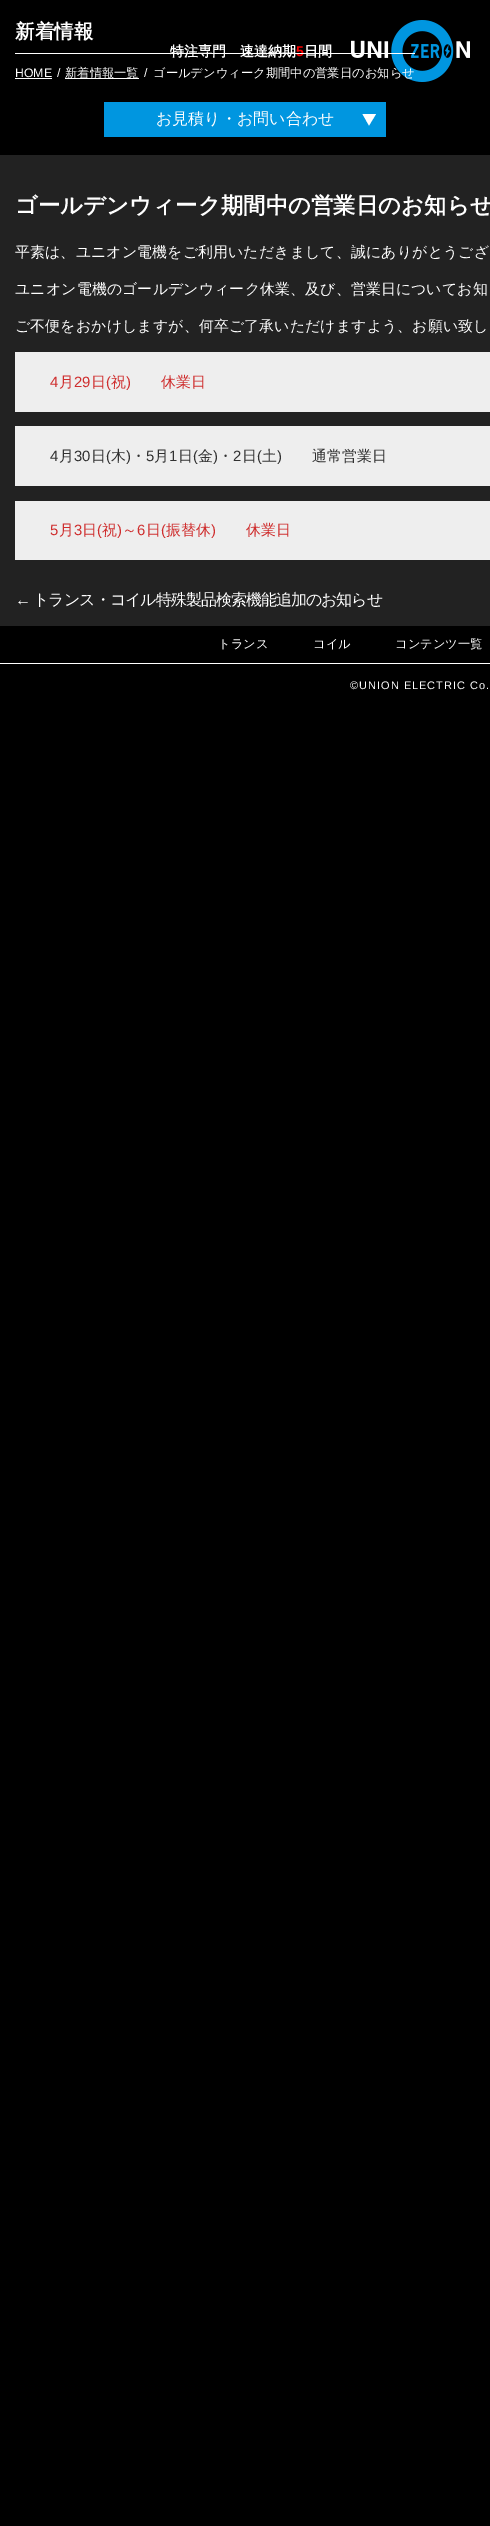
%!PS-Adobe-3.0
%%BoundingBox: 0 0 490 2526
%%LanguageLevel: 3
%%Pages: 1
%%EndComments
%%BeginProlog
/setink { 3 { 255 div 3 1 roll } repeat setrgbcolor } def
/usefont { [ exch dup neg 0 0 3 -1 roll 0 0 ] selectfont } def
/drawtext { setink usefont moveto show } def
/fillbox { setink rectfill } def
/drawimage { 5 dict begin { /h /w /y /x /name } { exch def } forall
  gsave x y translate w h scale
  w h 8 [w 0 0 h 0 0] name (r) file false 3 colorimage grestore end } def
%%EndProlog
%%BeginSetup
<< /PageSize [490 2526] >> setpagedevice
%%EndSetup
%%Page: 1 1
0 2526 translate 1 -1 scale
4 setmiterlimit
0 0 490 2526 0 0 0 fillbox
0 155 490 471 34 34 34 fillbox
(5) 296 56 /LiberationSans-Bold 14 255 0 0 drawtext
(assets/img1.rgb) 351 20 119 62 drawimage
15 53 400 1 255 255 255 fillbox
(新着情報) 15 38 /WenQuanYiZenHei-Bold 19.5 255 255 255 drawtext
(HOME) 15 77 /LiberationSans-Regular 12.3 255 255 255 drawtext
15 78 37 1 255 255 255 fillbox
(/) 57 77 /LiberationSans-Regular 12.3 255 255 255 drawtext
65 78 74 1 255 255 255 fillbox
(新着情報一覧) 65 77 /WenQuanYiZenHei-Medium 12.3 255 255 255 drawtext
(/) 144 77 /LiberationSans-Regular 12.3 255 255 255 drawtext
(ゴールデンウィーク期間中の営業日のお知らせ) 153 77 /WenQuanYiZenHei-Medium 12.3 255 255 255 drawtext
/WenQuanYiZenHei-Bold 22.3 usefont
15 213 moveto 0.15 0 (ゴールデンウィーク期間中の営業日のお知らせ) ashow
/WenQuanYiZenHei-Medium 14.9 usefont
15 257 moveto 0.15 0 (平素は、ユニオン電機をご利用いただきまして、誠にありがとうござ) ashow
15 294 moveto 0.15 0 (ユニオン電機のゴールデンウィーク休業、及び、営業日についてお知) ashow
15 331 moveto 0.15 0 (ご不便をおかけしますが、何卒ご了承いただけますよう、お願い致し) ashow
15 352 475 60 238 238 238 fillbox
/LiberationSans-Regular 14.9 usefont
207 46 46 setink
50 387 moveto 0.15 0 (4) ashow
/WenQuanYiZenHei-Medium 14.9 usefont
59 387 moveto 0.15 0 (月) ashow
/LiberationSans-Regular 14.9 usefont
74 387 moveto 0.15 0 (29) ashow
/WenQuanYiZenHei-Medium 14.9 usefont
91 387 moveto 0.15 0 (日) ashow
/LiberationSans-Regular 14.9 usefont
106 387 moveto 0.15 0 (\() ashow
/WenQuanYiZenHei-Medium 14.9 usefont
111 387 moveto 0.15 0 (祝) ashow
/LiberationSans-Regular 14.9 usefont
126 387 moveto 0.15 0 (\)) ashow
/WenQuanYiZenHei-Medium 14.9 usefont
161 387 moveto 0.15 0 (休業日) ashow
15 426 475 60 238 238 238 fillbox
/LiberationSans-Regular 14.9 usefont
49 49 49 setink
50 461 moveto 0.15 0 (4) ashow
/WenQuanYiZenHei-Medium 14.9 usefont
59 461 moveto 0.15 0 (月) ashow
/LiberationSans-Regular 14.9 usefont
74 461 moveto 0.15 0 (30) ashow
/WenQuanYiZenHei-Medium 14.9 usefont
91 461 moveto 0.15 0 (日) ashow
/LiberationSans-Regular 14.9 usefont
106 461 moveto 0.15 0 (\() ashow
/WenQuanYiZenHei-Medium 14.9 usefont
111 461 moveto 0.15 0 (木) ashow
/LiberationSans-Regular 14.9 usefont
126 461 moveto 0.15 0 (\)) ashow
/WenQuanYiZenHei-Medium 14.9 usefont
131 461 moveto 0.15 0 (・) ashow
/LiberationSans-Regular 14.9 usefont
146 461 moveto 0.15 0 (5) ashow
/WenQuanYiZenHei-Medium 14.9 usefont
154 461 moveto 0.15 0 (月) ashow
/LiberationSans-Regular 14.9 usefont
169 461 moveto 0.15 0 (1) ashow
/WenQuanYiZenHei-Medium 14.9 usefont
178 461 moveto 0.15 0 (日) ashow
/LiberationSans-Regular 14.9 usefont
193 461 moveto 0.15 0 (\() ashow
/WenQuanYiZenHei-Medium 14.9 usefont
198 461 moveto 0.15 0 (金) ashow
/LiberationSans-Regular 14.9 usefont
213 461 moveto 0.15 0 (\)) ashow
/WenQuanYiZenHei-Medium 14.9 usefont
218 461 moveto 0.15 0 (・) ashow
/LiberationSans-Regular 14.9 usefont
233 461 moveto 0.15 0 (2) ashow
/WenQuanYiZenHei-Medium 14.9 usefont
242 461 moveto 0.15 0 (日) ashow
/LiberationSans-Regular 14.9 usefont
257 461 moveto 0.15 0 (\() ashow
/WenQuanYiZenHei-Medium 14.9 usefont
262 461 moveto 0.15 0 (土) ashow
/LiberationSans-Regular 14.9 usefont
277 461 moveto 0.15 0 (\)) ashow
/WenQuanYiZenHei-Medium 14.9 usefont
312 461 moveto 0.15 0 (通常営業日) ashow
15 501 475 59 238 238 238 fillbox
/LiberationSans-Regular 14.9 usefont
207 46 46 setink
50 535 moveto 0.15 0 (5) ashow
/WenQuanYiZenHei-Medium 14.9 usefont
59 535 moveto 0.15 0 (月) ashow
/LiberationSans-Regular 14.9 usefont
74 535 moveto 0.15 0 (3) ashow
/WenQuanYiZenHei-Medium 14.9 usefont
82 535 moveto 0.15 0 (日) ashow
/LiberationSans-Regular 14.9 usefont
97 535 moveto 0.15 0 (\() ashow
/WenQuanYiZenHei-Medium 14.9 usefont
102 535 moveto 0.15 0 (祝) ashow
/LiberationSans-Regular 14.9 usefont
117 535 moveto 0.15 0 (\)) ashow
/WenQuanYiZenHei-Medium 14.9 usefont
122 535 moveto 0.15 0 (～) ashow
/LiberationSans-Regular 14.9 usefont
137 535 moveto 0.15 0 (6) ashow
/WenQuanYiZenHei-Medium 14.9 usefont
146 535 moveto 0.15 0 (日) ashow
/LiberationSans-Regular 14.9 usefont
161 535 moveto 0.15 0 (\() ashow
/WenQuanYiZenHei-Medium 14.9 usefont
166 535 moveto 0.15 0 (振替休) ashow
/LiberationSans-Regular 14.9 usefont
211 535 moveto 0.15 0 (\)) ashow
/WenQuanYiZenHei-Medium 14.9 usefont
246 535 moveto 0.15 0 (休業日) ashow
/LiberationSans-Regular 16 usefont
255 255 255 setink
15 605 moveto -1 0 (←) ashow
/WenQuanYiZenHei-Medium 16 usefont
33 605 moveto -1 0 (トランス・コイル特殊製品検索機能追加のお知らせ) ashow
(特注専門　速達納期) 170 56 /WenQuanYiZenHei-Bold 14 255 255 255 drawtext
(日間) 304 56 /WenQuanYiZenHei-Bold 14 255 255 255 drawtext
104 102 282 35 0 150 224 fillbox
(お見積り・お問い合わせ) 156 124 /WenQuanYiZenHei-Medium 16 255 255 255 drawtext
376 114 moveto 369 125.5 lineto 362.5 114 lineto closepath fill
0 663 490 1 255 255 255 fillbox
(トランス) 218 648 /WenQuanYiZenHei-Medium 12.3 255 255 255 drawtext
(コイル) 313 648 /WenQuanYiZenHei-Medium 12.3 255 255 255 drawtext
(コンテンツ一覧) 395 648 /WenQuanYiZenHei-Medium 12.3 255 255 255 drawtext
/LiberationSans-Regular 11 usefont
350 689 moveto 1 0 (©UNION ELECTRIC Co.) ashow
showpage
%%EOF
